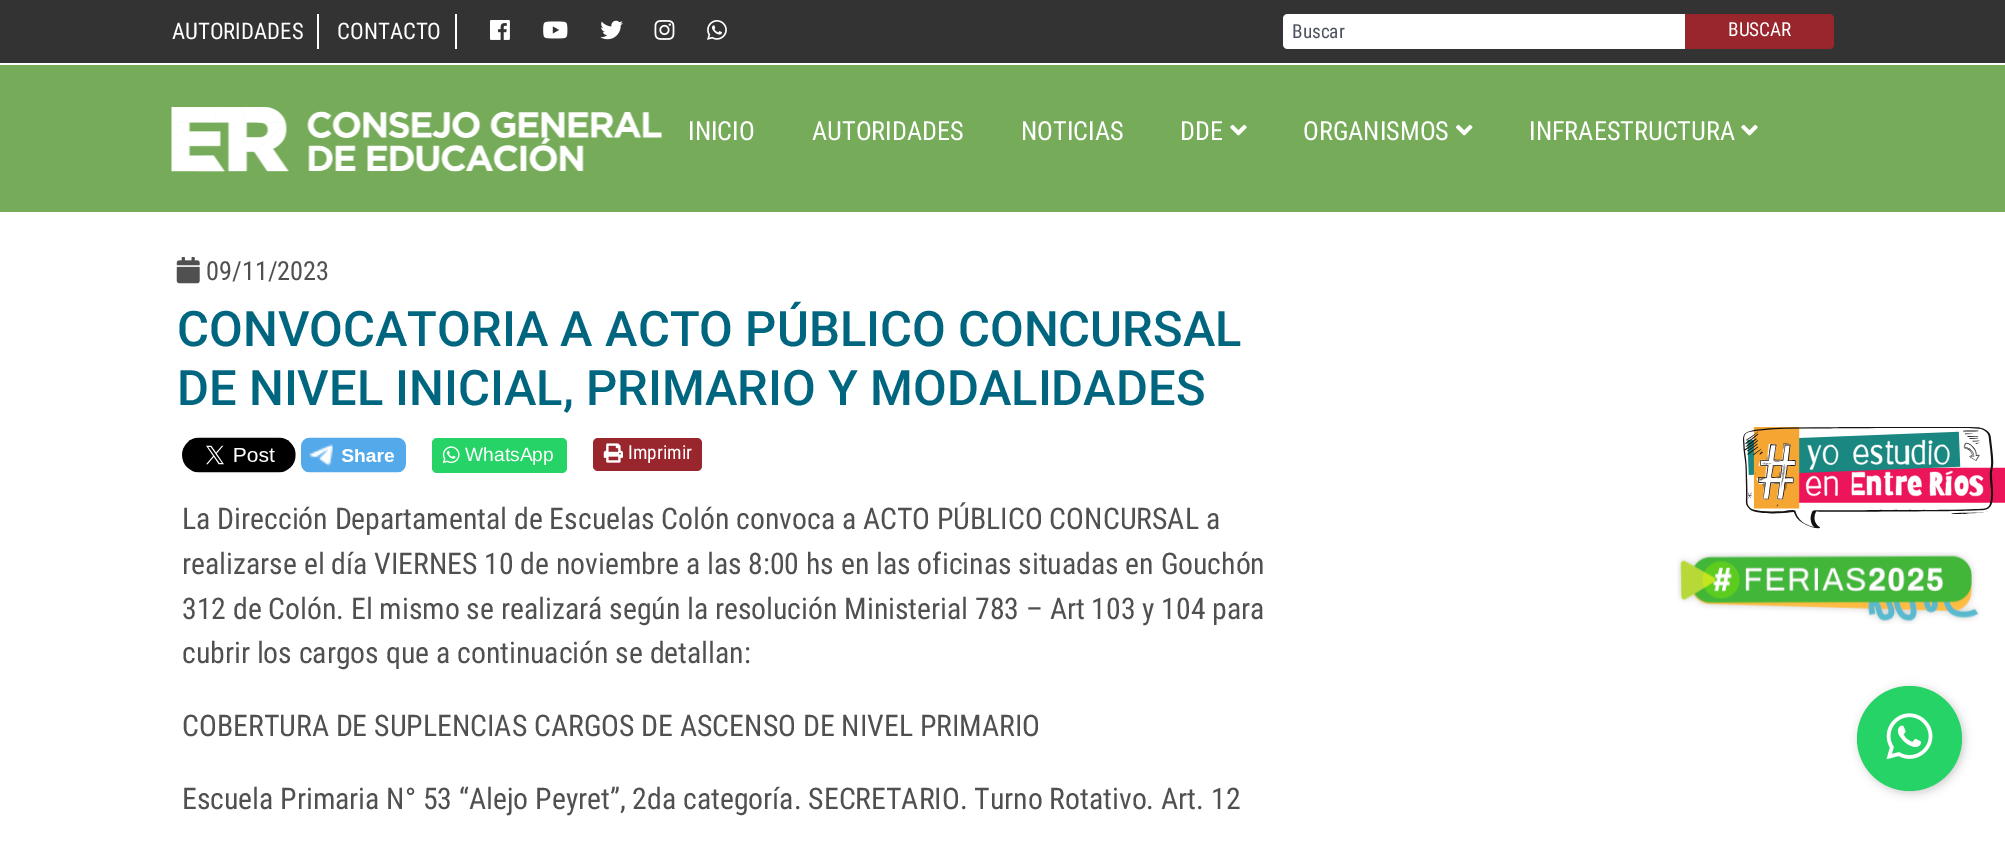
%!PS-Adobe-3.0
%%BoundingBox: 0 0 2005 842
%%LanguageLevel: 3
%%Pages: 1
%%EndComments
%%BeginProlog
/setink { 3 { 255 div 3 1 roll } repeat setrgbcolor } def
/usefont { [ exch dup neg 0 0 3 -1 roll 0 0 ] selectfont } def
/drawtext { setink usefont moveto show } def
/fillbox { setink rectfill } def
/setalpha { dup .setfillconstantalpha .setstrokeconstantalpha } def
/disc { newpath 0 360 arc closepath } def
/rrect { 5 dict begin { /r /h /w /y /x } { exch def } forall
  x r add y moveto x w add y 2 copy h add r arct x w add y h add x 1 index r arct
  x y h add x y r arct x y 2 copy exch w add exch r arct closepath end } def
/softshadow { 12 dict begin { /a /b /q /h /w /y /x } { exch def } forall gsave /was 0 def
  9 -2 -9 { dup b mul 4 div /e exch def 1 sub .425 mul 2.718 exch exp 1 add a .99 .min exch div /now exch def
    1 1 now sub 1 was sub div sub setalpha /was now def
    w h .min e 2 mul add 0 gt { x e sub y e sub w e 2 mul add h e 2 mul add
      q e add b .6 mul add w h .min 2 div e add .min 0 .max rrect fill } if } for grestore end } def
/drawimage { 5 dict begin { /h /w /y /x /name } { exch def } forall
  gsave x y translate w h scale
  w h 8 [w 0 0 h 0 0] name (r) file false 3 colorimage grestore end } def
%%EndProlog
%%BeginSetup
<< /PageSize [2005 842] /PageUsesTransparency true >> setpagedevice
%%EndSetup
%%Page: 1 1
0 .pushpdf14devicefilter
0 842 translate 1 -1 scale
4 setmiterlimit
0 0 2005 842 255 255 255 fillbox
0 0 2005 63 51 51 51 fillbox
317 14 2 35 255 255 255 fillbox
(AUTORIDADES) 172 39 /RobotoCondensed-Regular 22.75 255 255 255 drawtext
455 14 2 35 255 255 255 fillbox
(CONTACTO) 337 39 /RobotoCondensed-Regular 22.75 255 255 255 drawtext
(assets/img1.rgb) 490 20 20 20 drawimage
(assets/img2.rgb) 543 21 25 18 drawimage
(assets/img3.rgb) 600 20 23 20 drawimage
(assets/img4.rgb) 654 20 21 20 drawimage
(assets/img5.rgb) 707 20 20 20 drawimage
1288 14 moveto 1685 14 lineto 1685 49 lineto 1288 49 lineto 1285 49 1283 47 1283 44 curveto 1283 19 lineto 1283 16 1285 14 1288 14 curveto closepath fill
(Buscar) 1292 38 /RobotoCondensed-Regular 19.25 77 83 94 drawtext
153 38 44 setink
1685 14 moveto 1829 14 lineto 1832 14 1834 16 1834 19 curveto 1834 44 lineto 1834 47 1832 49 1829 49 curveto 1685 49 lineto closepath fill
(BUSCAR) 1728 36 /RobotoCondensed-Regular 19.25 255 255 255 drawtext
0 65 2005 147 117 171 89 fillbox
(assets/img6.rgb) 171 107 491 65 drawimage
(INICIO) 688 140 /RobotoCondensed-Regular 26.25 255 255 255 drawtext
(AUTORIDADES) 812 140 /RobotoCondensed-Regular 26.25 255 255 255 drawtext
(NOTICIAS) 1021 140 /RobotoCondensed-Regular 26.25 255 255 255 drawtext
(DDE) 1180 140 /RobotoCondensed-Regular 26.25 255 255 255 drawtext
(assets/img7.rgb) 1230 124 17 12 drawimage
(ORGANISMOS) 1303 140 /RobotoCondensed-Regular 26.25 255 255 255 drawtext
(assets/img8.rgb) 1456 124 17 12 drawimage
(INFRAESTRUCTURA) 1529 140 /RobotoCondensed-Regular 26.25 255 255 255 drawtext
(assets/img7.rgb) 1741 124 17 12 drawimage
(assets/img9.rgb) 176 257 24 27 drawimage
(09/11/2023) 206 280 /RobotoCondensed-Regular 26.25 80 80 80 drawtext
(CONVOCATORIA A ACTO PÚBLICO CONCURSAL) 177 346 /Roboto-Medium 49 0 102 128 drawtext
(DE NIVEL INICIAL, PRIMARIO Y MODALIDADES) 177 405 /Roboto-Medium 49 0 102 128 drawtext
(assets/img10.rgb) 182 437 114 36 drawimage
(assets/img11.rgb) 301 437 105 36 drawimage
37 211 102 setink
432 438 135 35 5 rrect fill
(assets/img12.rgb) 442 446 18 18 drawimage
(WhatsApp) 465 461 /LiberationSans-Regular 19.25 255 255 255 drawtext
153 38 44 setink
593 438 109 33 5 rrect fill
(assets/img13.rgb) 603 443 20 20 drawimage
(Imprimir) 628 459 /RobotoCondensed-Regular 19.25 255 255 255 drawtext
(La Dirección Departamental de Escuelas Colón convoca a ACTO PÚBLICO CONCURSAL a) 182 529 /RobotoCondensed-Regular 29.75 80 80 80 drawtext
(realizarse el día VIERNES 10 de noviembre a las 8:00 hs en las oficinas situadas en Gouchón) 182 574 /RobotoCondensed-Regular 29.75 80 80 80 drawtext
(312 de Colón. El mismo se realizará según la resolución Ministerial 783 – Art 103 y 104 para) 182 619 /RobotoCondensed-Regular 29.75 80 80 80 drawtext
(cubrir los cargos que a continuación se detallan:) 182 663 /RobotoCondensed-Regular 29.75 80 80 80 drawtext
(COBERTURA DE SUPLENCIAS CARGOS DE ASCENSO DE NIVEL PRIMARIO) 182 736 /RobotoCondensed-Regular 29.75 80 80 80 drawtext
(Escuela Primaria N° 53 “Alejo Peyret”, 2da categoría. SECRETARIO. Turno Rotativo. Art. 12) 182 809 /RobotoCondensed-Regular 29.75 80 80 80 drawtext
(assets/img14.rgb) 1743 427 262 102 drawimage
(assets/img15.rgb) 1677 552 303 72 drawimage
0 0 0 setink
1859 688 105 105 52.5 4.5 0.2 softshadow
37 211 102 setink
1909.5 738.5 52.5 disc fill
(assets/img16.rgb) 1886 713 47 47 drawimage
.poppdf14devicefilter showpage
%%EOF
